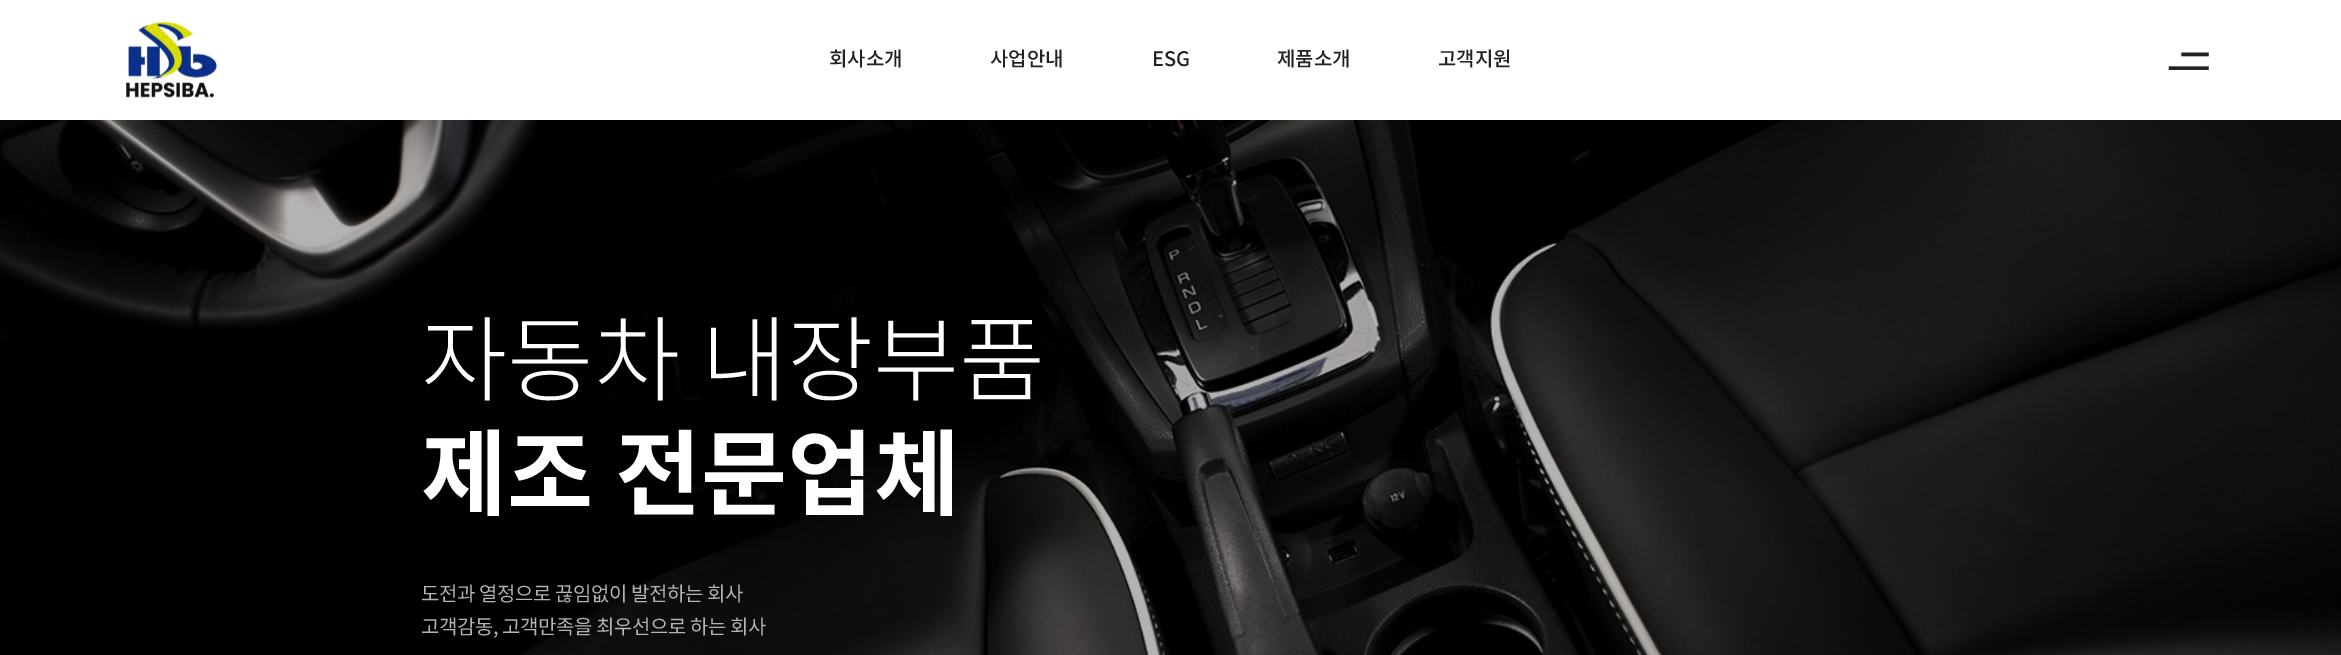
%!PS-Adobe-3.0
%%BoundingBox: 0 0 2341 655
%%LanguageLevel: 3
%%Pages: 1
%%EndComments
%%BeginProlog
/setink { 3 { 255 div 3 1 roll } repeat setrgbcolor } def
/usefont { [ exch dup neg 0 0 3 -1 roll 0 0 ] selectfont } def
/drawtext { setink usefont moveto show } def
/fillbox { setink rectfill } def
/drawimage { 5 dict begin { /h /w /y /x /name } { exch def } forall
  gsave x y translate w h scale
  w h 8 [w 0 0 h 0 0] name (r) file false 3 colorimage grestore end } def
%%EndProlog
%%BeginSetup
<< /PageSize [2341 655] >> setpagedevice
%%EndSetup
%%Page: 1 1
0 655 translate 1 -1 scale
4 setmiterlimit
0 0 2341 655 255 255 255 fillbox
(assets/img1.rgb) 126 21 91 77 drawimage
(회사소개) 829 66 /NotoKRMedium-Medium 20 34 34 34 drawtext
(사업안내) 990 66 /NotoKRMedium-Medium 20 34 34 34 drawtext
(ESG) 1152 66 /NotoKRMedium-Medium 20 34 34 34 drawtext
(제품소개) 1277 66 /NotoKRMedium-Medium 20 34 34 34 drawtext
(고객지원) 1438 66 /NotoKRMedium-Medium 20 34 34 34 drawtext
(assets/img2.rgb) 2168 52 41 18 drawimage
(assets/img3.rgb) 0 120 2341 535 drawimage
(자동차 내장부품) 421 394 /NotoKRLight-Light 93.75 255 255 255 drawtext
(제조 전문업체) 421 508 /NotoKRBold-Bold 93.75 255 255 255 drawtext
/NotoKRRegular-Regular 20 usefont
180 180 180 setink
421 601 moveto -0.4 0 (도전과 열정으로 끊임없이 발전하는 회사) ashow
421 634 moveto -0.4 0 (고객감동, 고객만족을 최우선으로 하는 회사) ashow
showpage
%%EOF
